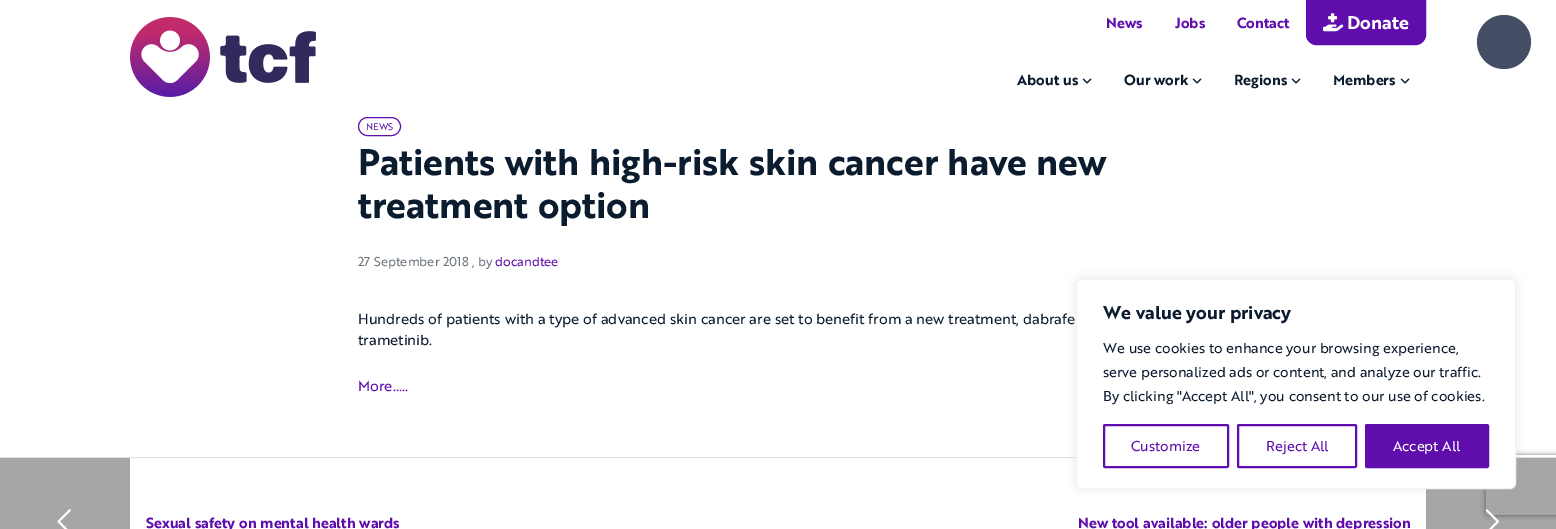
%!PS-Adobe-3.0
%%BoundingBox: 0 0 1556 529
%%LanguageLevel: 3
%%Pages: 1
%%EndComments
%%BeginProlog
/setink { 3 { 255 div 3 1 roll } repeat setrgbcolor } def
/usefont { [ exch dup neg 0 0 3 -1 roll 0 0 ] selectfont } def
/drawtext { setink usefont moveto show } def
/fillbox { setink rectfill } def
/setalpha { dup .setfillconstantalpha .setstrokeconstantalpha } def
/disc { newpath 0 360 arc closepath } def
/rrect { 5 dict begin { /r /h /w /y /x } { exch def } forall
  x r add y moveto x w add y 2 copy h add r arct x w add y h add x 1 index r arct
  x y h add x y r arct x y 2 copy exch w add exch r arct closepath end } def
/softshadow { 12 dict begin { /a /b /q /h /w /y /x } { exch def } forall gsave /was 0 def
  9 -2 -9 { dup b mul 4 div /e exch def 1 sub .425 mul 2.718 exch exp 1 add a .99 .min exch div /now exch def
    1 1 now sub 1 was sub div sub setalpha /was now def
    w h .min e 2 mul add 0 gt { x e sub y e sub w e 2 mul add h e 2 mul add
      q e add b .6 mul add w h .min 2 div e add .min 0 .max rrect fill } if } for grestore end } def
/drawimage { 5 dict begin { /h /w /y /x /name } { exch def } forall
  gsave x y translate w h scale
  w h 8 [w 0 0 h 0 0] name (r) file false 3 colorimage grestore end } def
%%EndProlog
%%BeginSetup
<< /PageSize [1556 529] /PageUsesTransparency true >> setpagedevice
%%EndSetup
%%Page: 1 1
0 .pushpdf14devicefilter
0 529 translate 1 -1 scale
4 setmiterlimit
0 0 1556 529 255 255 255 fillbox
(assets/img1.rgb) 130 17 186 80 drawimage
(News) 1106 28 /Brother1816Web-Bold 14.4 95 14 173 drawtext
(Jobs) 1175 28 /Brother1816Web-Bold 14.4 95 14 173 drawtext
(Contact) 1237 28 /Brother1816Web-Bold 14.4 95 14 173 drawtext
1306.5 0.5 moveto 1425.5 0.5 lineto 1425.5 35 lineto 1425.5 40 1421 44.5 1416 44.5 curveto 1316 44.5 lineto 1311 44.5 1306.5 40 1306.5 35 curveto closepath gsave fill grestore
stroke
(assets/img2.rgb) 1323 13 21 19 drawimage
(Donate) 1347 29 /Brother1816Web-Bold 18 255 255 255 drawtext
(About us) 1017 85 /Brother1816Web-Bold 14.4 11 28 47 drawtext
(assets/img3.rgb) 1082 78 10 6 drawimage
(Our work) 1124 85 /Brother1816Web-Bold 14.4 11 28 47 drawtext
(assets/img3.rgb) 1192 78 10 6 drawimage
(Regions) 1234 85 /Brother1816Web-Bold 14.4 11 28 47 drawtext
(assets/img3.rgb) 1291 78 10 6 drawimage
(Members) 1333 85 /Brother1816Web-Bold 14.4 11 28 47 drawtext
(assets/img3.rgb) 1400 78 10 6 drawimage
67 78 101 setink
1504 42 27 disc fill
95 14 173 setink
358.5 117.5 42 18 9 rrect stroke
(NEWS) 366 130 /Brother1816Web-Regular 9.5 95 14 173 drawtext
(Patients with high-risk skin cancer have new) 358 175 /Brother1816Web-Bold 36 11 28 47 drawtext
(treatment option) 358 218 /Brother1816Web-Bold 36 11 28 47 drawtext
(27 September 2018 , by) 358 266 /Brother1816Web-Regular 12.6 108 117 125 drawtext
(docandtee) 495 266 /Brother1816Web-Regular 12.6 95 14 173 drawtext
(Hundreds of patients with a type of advanced skin cancer are set to benefit from a new treatment, dabrafe) 358 324 /Brother1816Web-Regular 14.4 11 28 47 drawtext
(trametinib.) 358 345 /Brother1816Web-Regular 14.4 11 28 47 drawtext
(More…..) 358 391 /Brother1816Web-Regular 14.4 95 14 173 drawtext
0 457 1556 1 222 226 230 fillbox
0 458 130 71 166 166 166 fillbox
(assets/img4.rgb) 57 509 14 20 drawimage
(Sexual safety on mental health wards) 146 528 /Brother1816Web-Bold 14.4 95 14 173 drawtext
(New tool available: older people with depression) 1078 528 /Brother1816Web-Bold 14.4 95 14 173 drawtext
gsave
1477 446 moveto 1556 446 lineto 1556 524 lineto 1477 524 lineto closepath 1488 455 moveto 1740 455 lineto 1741 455 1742 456 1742 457 curveto 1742 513 lineto 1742 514 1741 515 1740 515 curveto 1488 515 lineto 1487 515 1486 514 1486 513 curveto 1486 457 lineto 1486 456 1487 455 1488 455 curveto closepath eoclip newpath
128 128 128 setink
1486 455 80 60 2 2.5 1 softshadow
grestore
0.35 setalpha
1426 458 130 71 0 0 0 fillbox
1 setalpha
(assets/img5.rgb) 1485 509 15 20 drawimage
172 171 171 setink
1076 278 440 210 6 5 0.3 softshadow
255 255 255 setink
1076.5 279.5 439 209 5.5 rrect gsave fill grestore
244 244 244 setink
stroke
(We value your privacy) 1103 319 /Brother1816Web-Bold 18 11 28 47 drawtext
(We use cookies to enhance your browsing experience,) 1103 353 /Brother1816Web-Regular 14 11 28 47 drawtext
(serve personalized ads or content, and analyze our traffic.) 1103 377 /Brother1816Web-Regular 14 11 28 47 drawtext
(By clicking "Accept All", you consent to our use of cookies.) 1103 401 /Brother1816Web-Regular 14 11 28 47 drawtext
95 14 173 setink
2 setlinewidth
1104 425 124 42 1 rrect stroke
(Customize) 1131 451 /Brother1816Web-Regular 14 95 14 173 drawtext
1238 425 118 42 1 rrect stroke
(Reject All) 1266 451 /Brother1816Web-Regular 14 95 14 173 drawtext
1366 425 122 42 1 rrect gsave fill grestore
stroke
(Accept All) 1393 451 /Brother1816Web-Regular 14 255 255 255 drawtext
.poppdf14devicefilter showpage
%%EOF
